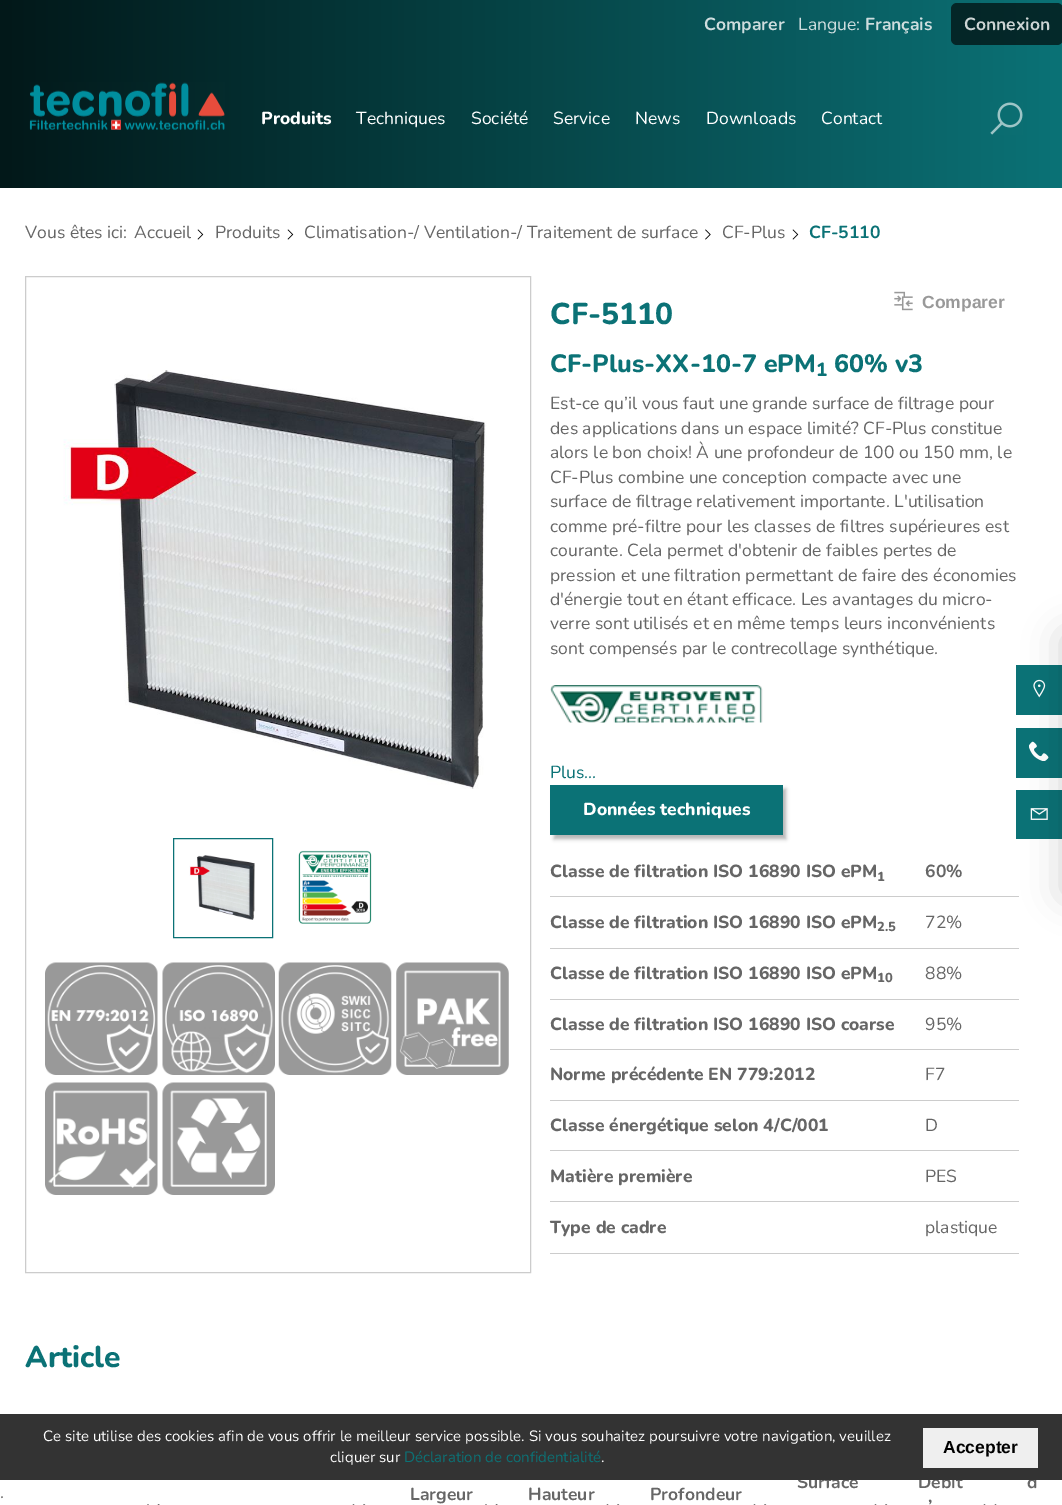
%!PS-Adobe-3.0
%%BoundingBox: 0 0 1062 1505
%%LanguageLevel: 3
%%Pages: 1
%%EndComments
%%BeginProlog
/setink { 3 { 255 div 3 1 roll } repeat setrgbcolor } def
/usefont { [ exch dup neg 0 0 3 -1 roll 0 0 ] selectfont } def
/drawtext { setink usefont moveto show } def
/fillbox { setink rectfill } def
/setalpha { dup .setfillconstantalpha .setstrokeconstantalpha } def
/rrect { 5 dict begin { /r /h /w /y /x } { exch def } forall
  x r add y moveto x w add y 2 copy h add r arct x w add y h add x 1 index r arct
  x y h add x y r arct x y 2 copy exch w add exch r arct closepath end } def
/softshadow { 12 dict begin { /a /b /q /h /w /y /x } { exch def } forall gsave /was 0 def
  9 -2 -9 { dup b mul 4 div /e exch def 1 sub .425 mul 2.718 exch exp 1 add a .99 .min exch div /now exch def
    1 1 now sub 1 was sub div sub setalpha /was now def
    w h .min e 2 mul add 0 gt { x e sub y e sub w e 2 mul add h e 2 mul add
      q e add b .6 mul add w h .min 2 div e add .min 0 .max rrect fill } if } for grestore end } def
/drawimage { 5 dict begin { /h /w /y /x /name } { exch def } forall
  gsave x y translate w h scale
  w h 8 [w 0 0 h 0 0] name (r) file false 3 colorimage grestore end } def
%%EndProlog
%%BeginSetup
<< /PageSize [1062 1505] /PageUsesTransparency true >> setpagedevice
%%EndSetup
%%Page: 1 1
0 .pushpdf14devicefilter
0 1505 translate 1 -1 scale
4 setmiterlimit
0 0 1062 1505 255 255 255 fillbox
gsave 0 0 moveto 1062 0 lineto 1062 188 lineto 0 188 lineto closepath clip newpath
<< /ShadingType 2 /ColorSpace /DeviceRGB /Coords [0 1374 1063 1374] /Extend [true true] /Function << /FunctionType 2 /Domain [0 1] /C0 [0.008 0.094 0.098] /C1 [0.043 0.447 0.463] /N 1 >> >> shfill grestore
(Comparer) 704 30 /Nunito-Bold 17.5 206 221 222 drawtext
(Langue:) 798 30 /Nunito-Regular 17.5 206 221 222 drawtext
(Français) 865 30 /Nunito-Bold 17.5 206 221 222 drawtext
0.64 setalpha
0 0 0 setink
951 3 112 42 6 rrect fill
1 setalpha
(Connexion) 964 30 /Nunito-Bold 17.5 205 212 212 drawtext
(assets/img1.rgb) 29 82 196 48 drawimage
(Produits) 261 124 /Nunito-ExtraBold 17.5 255 255 255 drawtext
(Techniques) 356 124 /Nunito-Regular 17.5 255 255 255 drawtext
(Société) 471 124 /Nunito-Regular 17.5 255 255 255 drawtext
(Service) 553 124 /Nunito-Regular 17.5 255 255 255 drawtext
(News) 635 124 /Nunito-Regular 17.5 255 255 255 drawtext
(Downloads) 706 124 /Nunito-Regular 17.5 255 255 255 drawtext
(Contact) 821 124 /Nunito-Regular 17.5 255 255 255 drawtext
(assets/img2.rgb) 990 102 33 33 drawimage
(Vous êtes ici:) 25 238 /Nunito-Regular 17.5 102 102 102 drawtext
(Accueil) 134 238 /Nunito-Regular 17.5 102 102 102 drawtext
(assets/img3.rgb) 197 229 7 11 drawimage
(Produits) 215 238 /Nunito-Regular 17.5 102 102 102 drawtext
(assets/img3.rgb) 287 229 7 11 drawimage
(Climatisation-/ Ventilation-/ Traitement de surface) 304 238 /Nunito-Regular 17.5 102 102 102 drawtext
(assets/img4.rgb) 705 229 6 11 drawimage
(CF-Plus) 722 238 /Nunito-Regular 17.5 102 102 102 drawtext
(assets/img3.rgb) 792 229 7 11 drawimage
(CF-5110) 809 238 /Nunito-Bold 17.5 11 114 118 drawtext
204 204 204 setink
25.5 276.5 505 996 rectstroke
(assets/img5.rgb) 63 370 424 419 drawimage
11 114 118 setink
173.5 838.5 99 99 rectstroke
(assets/img6.rgb) 189 855 66 65 drawimage
(assets/img7.rgb) 298 850 74 74 drawimage
(assets/img8.rgb) 45 962 113 113 drawimage
(assets/img9.rgb) 162 962 113 113 drawimage
(assets/img10.rgb) 278 962 114 113 drawimage
(assets/img11.rgb) 396 962 113 113 drawimage
(assets/img12.rgb) 45 1082 113 113 drawimage
(assets/img13.rgb) 162 1082 113 113 drawimage
(CF-5110) 550 324 /Nunito-ExtraBold 30 11 114 118 drawtext
(assets/img14.rgb) 894 291 19 20 drawimage
(Comparer) 922 308 /LiberationSans-Bold 17.5 153 153 153 drawtext
(CF-Plus-XX-10-7 ePM) 550 372 /Nunito-ExtraBold 25 11 114 118 drawtext
(1) 816 376 /Nunito-ExtraBold 19 11 114 118 drawtext
(60% v3) 834 372 /Nunito-ExtraBold 25 11 114 118 drawtext
(Est-ce qu’il vous faut une grande surface de filtrage pour) 550 409 /Nunito-Regular 17.5 102 102 102 drawtext
(des applications dans un espace limité? CF-Plus constitue) 550 434 /Nunito-Regular 17.5 102 102 102 drawtext
(alors le bon choix! À une profondeur de 100 ou 150 mm, le) 550 458 /Nunito-Regular 17.5 102 102 102 drawtext
(CF-Plus combine une conception compacte avec une) 550 483 /Nunito-Regular 17.5 102 102 102 drawtext
(surface de filtrage relativement importante. L'utilisation) 550 507 /Nunito-Regular 17.5 102 102 102 drawtext
(comme pré-filtre pour les classes de filtres supérieures est) 550 532 /Nunito-Regular 17.5 102 102 102 drawtext
(courante. Cela permet d'obtenir de faibles pertes de) 550 556 /Nunito-Regular 17.5 102 102 102 drawtext
(pression et une filtration permettant de faire des économies) 550 581 /Nunito-Regular 17.5 102 102 102 drawtext
(d'énergie tout en étant efficace. Les avantages du micro-) 550 605 /Nunito-Regular 17.5 102 102 102 drawtext
(verre sont utilisés et en même temps leurs inconvénients) 550 629 /Nunito-Regular 17.5 102 102 102 drawtext
(sont compensés par le contrecollage synthétique.) 550 654 /Nunito-Regular 17.5 102 102 102 drawtext
(assets/img15.rgb) 550 685 213 38 drawimage
(Plus…) 550 778 /Nunito-Regular 17.5 11 114 118 drawtext
0 0 0 setink
554 789 232 50 0 2 0.3 softshadow
550 785 233 50 11 114 118 fillbox
(Données techniques) 583 815 /Nunito-ExtraBold 17.5 255 255 255 drawtext
550 896 469 1 204 204 204 fillbox
(Classe de filtration ISO 16890 ISO ePM) 550 877 /Nunito-ExtraBold 17.5 102 102 102 drawtext
(1) 877 881 /Nunito-ExtraBold 13 102 102 102 drawtext
(60%) 925 877 /Nunito-Bold 17.5 102 102 102 drawtext
550 948 469 1 204 204 204 fillbox
(Classe de filtration ISO 16890 ISO ePM) 550 928 /Nunito-ExtraBold 17.5 102 102 102 drawtext
(2.5) 877 931 /Nunito-ExtraBold 13 102 102 102 drawtext
(72%) 925 928 /Nunito-Regular 17.5 102 102 102 drawtext
550 999 469 1 204 204 204 fillbox
(Classe de filtration ISO 16890 ISO ePM) 550 979 /Nunito-ExtraBold 17.5 102 102 102 drawtext
(10) 877 982 /Nunito-ExtraBold 13 102 102 102 drawtext
(88%) 925 979 /Nunito-Regular 17.5 102 102 102 drawtext
550 1049 469 1 204 204 204 fillbox
(Classe de filtration ISO 16890 ISO coarse) 550 1030 /Nunito-ExtraBold 17.5 102 102 102 drawtext
(95%) 925 1030 /Nunito-Regular 17.5 102 102 102 drawtext
550 1100 469 1 204 204 204 fillbox
(Norme précédente EN 779:2012) 550 1080 /Nunito-ExtraBold 17.5 102 102 102 drawtext
(F7) 925 1080 /Nunito-Regular 17.5 102 102 102 drawtext
550 1150 469 1 204 204 204 fillbox
(Classe énergétique selon 4/C/001) 550 1131 /Nunito-ExtraBold 17.5 102 102 102 drawtext
(D) 925 1131 /Nunito-Regular 17.5 102 102 102 drawtext
550 1201 469 1 204 204 204 fillbox
(Matière première) 550 1182 /Nunito-ExtraBold 17.5 102 102 102 drawtext
(PES) 925 1182 /Nunito-Regular 17.5 102 102 102 drawtext
550 1253 469 1 204 204 204 fillbox
(Type de cadre) 550 1233 /Nunito-ExtraBold 17.5 102 102 102 drawtext
(plastique) 925 1233 /Nunito-Regular 17.5 102 102 102 drawtext
(Article) 25 1367 /Nunito-ExtraBold 30 11 114 118 drawtext
(Surface) 797 1488 /Nunito-Bold 17.5 102 102 102 drawtext
886 1504 moveto 889 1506.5 lineto 881 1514.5 lineto 878 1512 lineto closepath 875.5 1504 moveto 883.5 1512 lineto 881 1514.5 lineto 873 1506.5 lineto closepath fill
(Débit) 918 1488 /Nunito-Bold 17.5 102 102 102 drawtext
(’) 928 1512 /Nunito-Bold 17.5 102 102 102 drawtext
995.5 1504 moveto 998 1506.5 lineto 990 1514.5 lineto 987.5 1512 lineto closepath 984.5 1504 moveto 992.5 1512 lineto 990 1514.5 lineto 982 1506.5 lineto closepath fill
(d) 1027 1488 /Nunito-Bold 17.5 102 102 102 drawtext
(Largeur) 410 1500 /Nunito-Bold 17.5 102 102 102 drawtext
496.5 1504 moveto 499.5 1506.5 lineto 491.5 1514.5 lineto 488.5 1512 lineto closepath 486 1504 moveto 494 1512 lineto 491.5 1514.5 lineto 483.5 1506.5 lineto closepath fill
(Hauteur) 528 1500 /Nunito-Bold 17.5 102 102 102 drawtext
618 1504 moveto 621 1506.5 lineto 613 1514.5 lineto 610 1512 lineto closepath 607.5 1504 moveto 615.5 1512 lineto 613 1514.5 lineto 605 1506.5 lineto closepath fill
(Profondeur) 650 1500 /Nunito-Bold 17.5 102 102 102 drawtext
765 1504 moveto 768 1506.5 lineto 760 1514.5 lineto 757 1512 lineto closepath 754.5 1504 moveto 762.5 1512 lineto 760 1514.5 lineto 752 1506.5 lineto closepath fill
158.5 1504 moveto 161.5 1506.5 lineto 153.5 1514.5 lineto 150.5 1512 lineto closepath 148 1504 moveto 156 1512 lineto 153.5 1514.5 lineto 145.5 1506.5 lineto closepath fill
364 1504 moveto 367 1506.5 lineto 359 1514.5 lineto 356 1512 lineto closepath 353.5 1504 moveto 361.5 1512 lineto 359 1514.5 lineto 351 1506.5 lineto closepath fill
0 1414 1062 66 51 51 51 fillbox
(Ce site utilise des cookies afin de vous offrir le meilleur service possible. Si vous souhaitez poursuivre votre navigation, veuillez) 43 1441 /Nunito-Regular 15 255 255 255 drawtext
(cliquer sur) 330 1462 /Nunito-Regular 15 255 255 255 drawtext
(Déclaration de confidentialité) 404 1462 /Nunito-Regular 15 11 114 118 drawtext
(.) 601 1462 /Nunito-Regular 15 255 255 255 drawtext
923 1428 115 40 239 239 239 fillbox
(Accepter) 943 1453 /LiberationSans-Bold 17.5 0 0 0 drawtext
(.) 0 1498 /Nunito-Regular 17.5 102 102 102 drawtext
1016 665 46 50 11 114 118 fillbox
(assets/img16.rgb) 1033 679 13 19 drawimage
1016 728 46 50 11 114 118 fillbox
(assets/img17.rgb) 1029 741 20 20 drawimage
1016 790 46 49 11 114 118 fillbox
(assets/img18.rgb) 1030 808 18 12 drawimage
0 0 0 setink
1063 635 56 260 0 19 0.18 softshadow
.poppdf14devicefilter showpage
%%EOF
